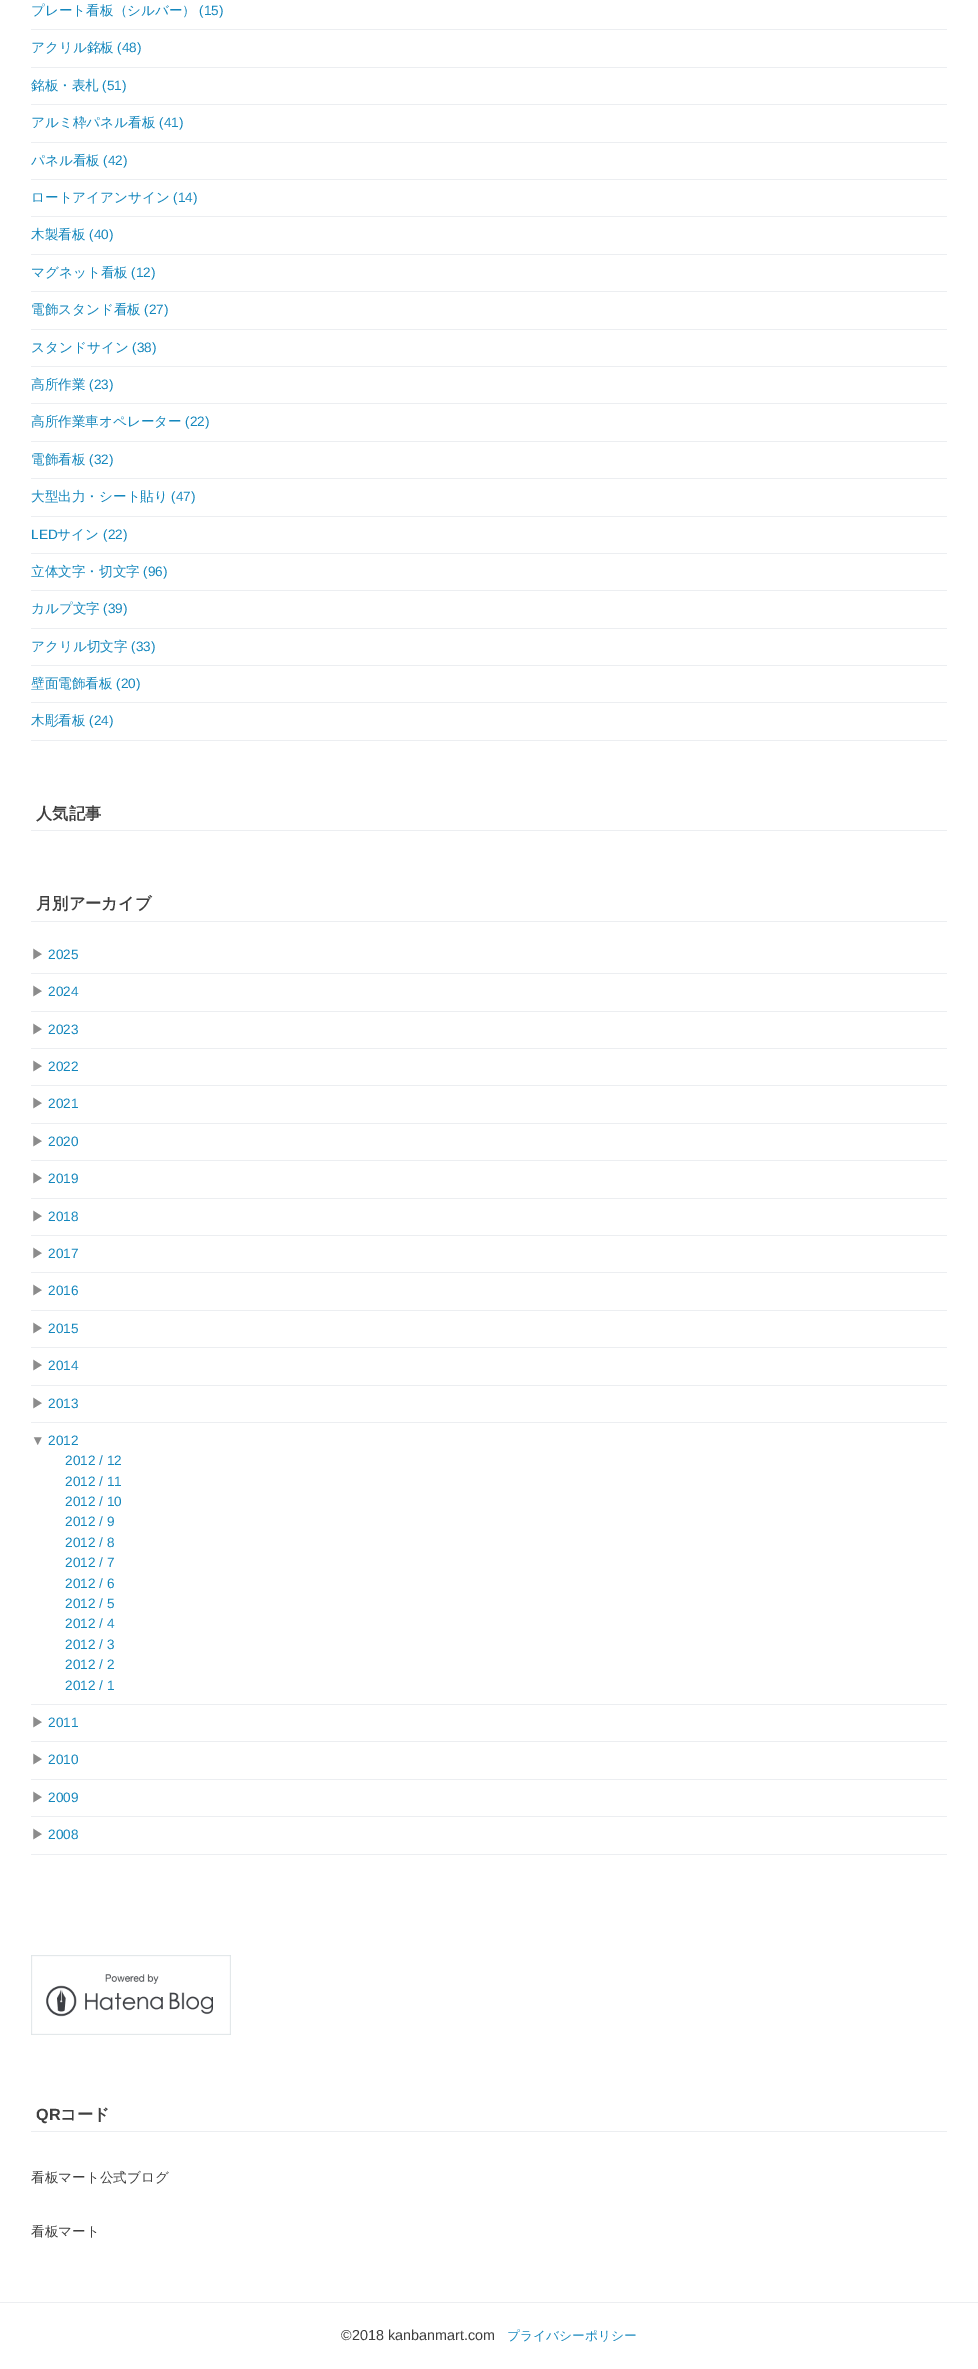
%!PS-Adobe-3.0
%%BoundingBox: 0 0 978 2369
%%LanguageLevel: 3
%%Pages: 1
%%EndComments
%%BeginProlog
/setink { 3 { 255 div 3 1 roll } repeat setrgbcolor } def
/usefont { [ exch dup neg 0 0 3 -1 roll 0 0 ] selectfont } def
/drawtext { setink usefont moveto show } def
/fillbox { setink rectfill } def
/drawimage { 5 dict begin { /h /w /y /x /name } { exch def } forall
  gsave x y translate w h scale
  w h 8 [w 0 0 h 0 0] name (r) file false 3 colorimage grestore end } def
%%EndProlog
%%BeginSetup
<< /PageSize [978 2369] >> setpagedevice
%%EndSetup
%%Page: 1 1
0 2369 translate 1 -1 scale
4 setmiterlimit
0 0 978 2369 255 255 255 fillbox
31 29 916 1 236 238 241 fillbox
(プレート看板（シルバー）) 31 15 /WenQuanYiZenHei-Medium 13.6 20 135 189 drawtext
(\(15\)) 199 15 /LiberationSans-Regular 13.6 20 135 189 drawtext
31 67 916 1 236 238 241 fillbox
(アクリル銘板) 31 52 /WenQuanYiZenHei-Medium 13.6 20 135 189 drawtext
(\(48\)) 117 52 /LiberationSans-Regular 13.6 20 135 189 drawtext
31 104 916 1 236 238 241 fillbox
(銘板・表札) 31 90 /WenQuanYiZenHei-Medium 13.6 20 135 189 drawtext
(\(51\)) 102 90 /LiberationSans-Regular 13.6 20 135 189 drawtext
31 142 916 1 236 238 241 fillbox
(アルミ枠パネル看板) 31 127 /WenQuanYiZenHei-Medium 13.6 20 135 189 drawtext
(\(41\)) 159 127 /LiberationSans-Regular 13.6 20 135 189 drawtext
31 179 916 1 236 238 241 fillbox
(パネル看板) 31 165 /WenQuanYiZenHei-Medium 13.6 20 135 189 drawtext
(\(42\)) 103 165 /LiberationSans-Regular 13.6 20 135 189 drawtext
31 216 916 1 236 238 241 fillbox
(ロートアイアンサイン) 31 202 /WenQuanYiZenHei-Medium 13.6 20 135 189 drawtext
(\(14\)) 173 202 /LiberationSans-Regular 13.6 20 135 189 drawtext
31 254 916 1 236 238 241 fillbox
(木製看板) 31 239 /WenQuanYiZenHei-Medium 13.6 20 135 189 drawtext
(\(40\)) 89 239 /LiberationSans-Regular 13.6 20 135 189 drawtext
31 291 916 1 236 238 241 fillbox
(マグネット看板) 31 277 /WenQuanYiZenHei-Medium 13.6 20 135 189 drawtext
(\(12\)) 131 277 /LiberationSans-Regular 13.6 20 135 189 drawtext
31 329 916 1 236 238 241 fillbox
(電飾スタンド看板) 31 314 /WenQuanYiZenHei-Medium 13.6 20 135 189 drawtext
(\(27\)) 144 314 /LiberationSans-Regular 13.6 20 135 189 drawtext
31 366 916 1 236 238 241 fillbox
(スタンドサイン) 31 352 /WenQuanYiZenHei-Medium 13.6 20 135 189 drawtext
(\(38\)) 132 352 /LiberationSans-Regular 13.6 20 135 189 drawtext
31 403 916 1 236 238 241 fillbox
(高所作業) 31 389 /WenQuanYiZenHei-Medium 13.6 20 135 189 drawtext
(\(23\)) 89 389 /LiberationSans-Regular 13.6 20 135 189 drawtext
31 441 916 1 236 238 241 fillbox
(高所作業車オペレーター) 31 426 /WenQuanYiZenHei-Medium 13.6 20 135 189 drawtext
(\(22\)) 185 426 /LiberationSans-Regular 13.6 20 135 189 drawtext
31 478 916 1 236 238 241 fillbox
(電飾看板) 31 464 /WenQuanYiZenHei-Medium 13.6 20 135 189 drawtext
(\(32\)) 89 464 /LiberationSans-Regular 13.6 20 135 189 drawtext
31 516 916 1 236 238 241 fillbox
(大型出力・シート貼り) 31 501 /WenQuanYiZenHei-Medium 13.6 20 135 189 drawtext
(\(47\)) 171 501 /LiberationSans-Regular 13.6 20 135 189 drawtext
31 553 916 1 236 238 241 fillbox
(LED) 31 539 /LiberationSans-Regular 13.6 20 135 189 drawtext
(サイン) 57 539 /WenQuanYiZenHei-Medium 13.6 20 135 189 drawtext
(\(22\)) 103 539 /LiberationSans-Regular 13.6 20 135 189 drawtext
31 590 916 1 236 238 241 fillbox
(立体文字・切文字) 31 576 /WenQuanYiZenHei-Medium 13.6 20 135 189 drawtext
(\(96\)) 143 576 /LiberationSans-Regular 13.6 20 135 189 drawtext
31 628 916 1 236 238 241 fillbox
(カルプ文字) 31 613 /WenQuanYiZenHei-Medium 13.6 20 135 189 drawtext
(\(39\)) 103 613 /LiberationSans-Regular 13.6 20 135 189 drawtext
31 665 916 1 236 238 241 fillbox
(アクリル切文字) 31 651 /WenQuanYiZenHei-Medium 13.6 20 135 189 drawtext
(\(33\)) 131 651 /LiberationSans-Regular 13.6 20 135 189 drawtext
31 702 916 1 236 238 241 fillbox
(壁面電飾看板) 31 688 /WenQuanYiZenHei-Medium 13.6 20 135 189 drawtext
(\(20\)) 116 688 /LiberationSans-Regular 13.6 20 135 189 drawtext
31 740 916 1 236 238 241 fillbox
(木彫看板) 31 725 /WenQuanYiZenHei-Medium 13.6 20 135 189 drawtext
(\(24\)) 89 725 /LiberationSans-Regular 13.6 20 135 189 drawtext
31 830 916 1 236 238 241 fillbox
(人気記事) 36 819 /WenQuanYiZenHei-Bold 16.25 63 63 63 drawtext
31 921 916 1 236 238 241 fillbox
(月別アーカイブ) 36 909 /WenQuanYiZenHei-Bold 16.25 63 63 63 drawtext
31 973 916 1 236 238 241 fillbox
(▶) 31 959 /WenQuanYiZenHei-Medium 13.6 140 140 140 drawtext
(2025) 48 959 /LiberationSans-Regular 13.6 20 135 189 drawtext
31 1011 916 1 236 238 241 fillbox
(▶) 31 996 /WenQuanYiZenHei-Medium 13.6 140 140 140 drawtext
(2024) 48 996 /LiberationSans-Regular 13.6 20 135 189 drawtext
31 1048 916 1 236 238 241 fillbox
(▶) 31 1034 /WenQuanYiZenHei-Medium 13.6 140 140 140 drawtext
(2023) 48 1034 /LiberationSans-Regular 13.6 20 135 189 drawtext
31 1085 916 1 236 238 241 fillbox
(▶) 31 1071 /WenQuanYiZenHei-Medium 13.6 140 140 140 drawtext
(2022) 48 1071 /LiberationSans-Regular 13.6 20 135 189 drawtext
31 1123 916 1 236 238 241 fillbox
(▶) 31 1108 /WenQuanYiZenHei-Medium 13.6 140 140 140 drawtext
(2021) 48 1108 /LiberationSans-Regular 13.6 20 135 189 drawtext
31 1160 916 1 236 238 241 fillbox
(▶) 31 1146 /WenQuanYiZenHei-Medium 13.6 140 140 140 drawtext
(2020) 48 1146 /LiberationSans-Regular 13.6 20 135 189 drawtext
31 1198 916 1 236 238 241 fillbox
(▶) 31 1183 /WenQuanYiZenHei-Medium 13.6 140 140 140 drawtext
(2019) 48 1183 /LiberationSans-Regular 13.6 20 135 189 drawtext
31 1235 916 1 236 238 241 fillbox
(▶) 31 1221 /WenQuanYiZenHei-Medium 13.6 140 140 140 drawtext
(2018) 48 1221 /LiberationSans-Regular 13.6 20 135 189 drawtext
31 1272 916 1 236 238 241 fillbox
(▶) 31 1258 /WenQuanYiZenHei-Medium 13.6 140 140 140 drawtext
(2017) 48 1258 /LiberationSans-Regular 13.6 20 135 189 drawtext
31 1310 916 1 236 238 241 fillbox
(▶) 31 1295 /WenQuanYiZenHei-Medium 13.6 140 140 140 drawtext
(2016) 48 1295 /LiberationSans-Regular 13.6 20 135 189 drawtext
31 1347 916 1 236 238 241 fillbox
(▶) 31 1333 /WenQuanYiZenHei-Medium 13.6 140 140 140 drawtext
(2015) 48 1333 /LiberationSans-Regular 13.6 20 135 189 drawtext
31 1385 916 1 236 238 241 fillbox
(▶) 31 1370 /WenQuanYiZenHei-Medium 13.6 140 140 140 drawtext
(2014) 48 1370 /LiberationSans-Regular 13.6 20 135 189 drawtext
31 1422 916 1 236 238 241 fillbox
(▶) 31 1408 /WenQuanYiZenHei-Medium 13.6 140 140 140 drawtext
(2013) 48 1408 /LiberationSans-Regular 13.6 20 135 189 drawtext
31 1704 916 1 236 238 241 fillbox
(▼) 31 1445 /LiberationSans-Regular 13.6 140 140 140 drawtext
(2012) 48 1445 /LiberationSans-Regular 13.6 20 135 189 drawtext
(2012 / 12) 65 1465 /LiberationSans-Regular 13.6 20 135 189 drawtext
(2012 / 11) 65 1486 /LiberationSans-Regular 13.6 20 135 189 drawtext
(2012 / 10) 65 1506 /LiberationSans-Regular 13.6 20 135 189 drawtext
(2012 / 9) 65 1526 /LiberationSans-Regular 13.6 20 135 189 drawtext
(2012 / 8) 65 1547 /LiberationSans-Regular 13.6 20 135 189 drawtext
(2012 / 7) 65 1567 /LiberationSans-Regular 13.6 20 135 189 drawtext
(2012 / 6) 65 1588 /LiberationSans-Regular 13.6 20 135 189 drawtext
(2012 / 5) 65 1608 /LiberationSans-Regular 13.6 20 135 189 drawtext
(2012 / 4) 65 1628 /LiberationSans-Regular 13.6 20 135 189 drawtext
(2012 / 3) 65 1649 /LiberationSans-Regular 13.6 20 135 189 drawtext
(2012 / 2) 65 1669 /LiberationSans-Regular 13.6 20 135 189 drawtext
(2012 / 1) 65 1690 /LiberationSans-Regular 13.6 20 135 189 drawtext
31 1741 916 1 236 238 241 fillbox
(▶) 31 1727 /WenQuanYiZenHei-Medium 13.6 140 140 140 drawtext
(2011) 48 1727 /LiberationSans-Regular 13.6 20 135 189 drawtext
31 1779 916 1 236 238 241 fillbox
(▶) 31 1764 /WenQuanYiZenHei-Medium 13.6 140 140 140 drawtext
(2010) 48 1764 /LiberationSans-Regular 13.6 20 135 189 drawtext
31 1816 916 1 236 238 241 fillbox
(▶) 31 1802 /WenQuanYiZenHei-Medium 13.6 140 140 140 drawtext
(2009) 48 1802 /LiberationSans-Regular 13.6 20 135 189 drawtext
31 1854 916 1 236 238 241 fillbox
(▶) 31 1839 /WenQuanYiZenHei-Medium 13.6 140 140 140 drawtext
(2008) 48 1839 /LiberationSans-Regular 13.6 20 135 189 drawtext
(assets/img1.rgb) 31 1955 200 80 drawimage
31 2131 916 1 236 238 241 fillbox
(QR) 36 2120 /LiberationSans-Bold 16.25 63 63 63 drawtext
(コード) 60 2120 /WenQuanYiZenHei-Bold 16.25 63 63 63 drawtext
(看板マート公式ブログ) 31 2182 /WenQuanYiZenHei-Medium 13.6 63 63 63 drawtext
(看板マート) 31 2236 /WenQuanYiZenHei-Medium 13.6 63 63 63 drawtext
0 2302 978 1 236 238 241 fillbox
(©2018 kanbanmart.com) 341 2340 /LiberationSans-Regular 14.4 63 63 63 drawtext
(プライバシーポリシー) 507 2340 /WenQuanYiZenHei-Medium 12.75 20 135 189 drawtext
showpage
%%EOF
